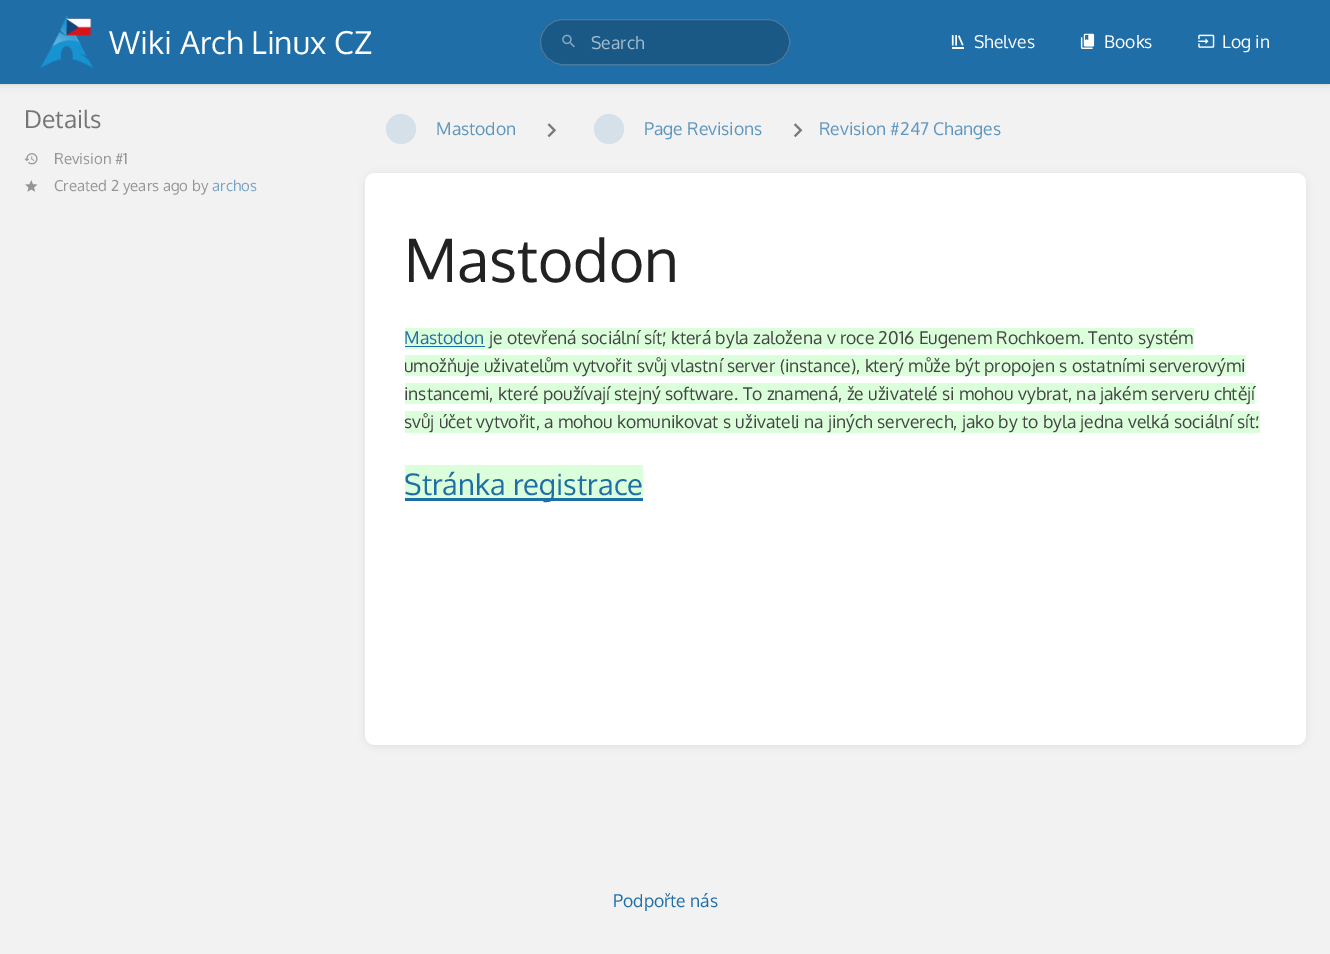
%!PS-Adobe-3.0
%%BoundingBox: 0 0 1330 954
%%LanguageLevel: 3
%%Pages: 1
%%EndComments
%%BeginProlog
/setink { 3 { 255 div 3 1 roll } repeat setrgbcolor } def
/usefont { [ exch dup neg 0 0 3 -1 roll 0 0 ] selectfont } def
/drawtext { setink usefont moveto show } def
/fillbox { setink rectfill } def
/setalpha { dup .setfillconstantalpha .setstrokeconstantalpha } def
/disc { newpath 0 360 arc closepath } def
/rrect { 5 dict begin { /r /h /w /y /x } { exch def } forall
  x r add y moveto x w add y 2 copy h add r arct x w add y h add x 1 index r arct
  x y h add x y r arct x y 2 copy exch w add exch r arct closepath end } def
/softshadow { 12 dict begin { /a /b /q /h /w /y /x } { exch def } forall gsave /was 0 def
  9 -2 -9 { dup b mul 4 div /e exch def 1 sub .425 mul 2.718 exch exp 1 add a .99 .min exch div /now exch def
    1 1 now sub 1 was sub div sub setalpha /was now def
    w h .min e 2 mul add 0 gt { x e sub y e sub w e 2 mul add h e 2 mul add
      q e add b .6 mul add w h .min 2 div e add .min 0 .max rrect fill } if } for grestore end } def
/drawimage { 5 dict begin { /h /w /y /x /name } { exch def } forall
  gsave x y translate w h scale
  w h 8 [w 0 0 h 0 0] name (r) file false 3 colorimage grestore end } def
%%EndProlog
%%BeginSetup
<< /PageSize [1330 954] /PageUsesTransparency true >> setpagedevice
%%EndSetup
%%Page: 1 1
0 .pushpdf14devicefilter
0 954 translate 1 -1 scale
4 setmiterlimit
0 0 1330 954 242 242 242 fillbox
0 0 0 setink
1 3 1328 82 0 4 0.1 softshadow
0 0 1330 84 32 110 167 fillbox
0 84 1330 1 221 221 221 fillbox
(assets/img1.rgb) 40 15 53 53 drawimage
(Wiki Arch Linux CZ) 109 54 /Oxygen-Regular 31.5 255 255 255 drawtext
26 88 134 setink
540 19 250 46 23 rrect fill
0.2 setalpha
255 255 255 setink
540.5 19.5 249 45 22.5 rrect stroke
1 setalpha
(assets/img2.rgb) 562 34 13 14 drawimage
(Search) 591 49 /Oxygen-Regular 17.5 163 188 207 drawtext
(assets/img3.rgb) 951 35 13 14 drawimage
(Shelves) 974 48 /Oxygen-Regular 17.5 255 255 255 drawtext
(assets/img4.rgb) 1080 33 15 16 drawimage
(Books) 1104 48 /Oxygen-Regular 17.5 255 255 255 drawtext
(assets/img5.rgb) 1198 34 17 14 drawimage
(Log in) 1222 48 /Oxygen-Regular 17.5 255 255 255 drawtext
(Details) 24 128 /Oxygen-Regular 24.5 117 117 117 drawtext
(assets/img6.rgb) 24 153 14 12 drawimage
(Revision #1) 54 164 /Oxygen-Regular 15 149 149 149 drawtext
(assets/img7.rgb) 25 180 13 12 drawimage
(Created 2 years ago by) 54 191 /Oxygen-Regular 15 149 149 149 drawtext
(archos) 212 191 /Oxygen-Regular 15 116 163 197 drawtext
213 224 232 setink
401 129 15 disc fill
(Mastodon) 436 135 /Oxygen-Regular 17.5 95 150 190 drawtext
(assets/img8.rgb) 547 123 9 15 drawimage
213 224 232 setink
609 129 15 disc fill
(Page Revisions) 644 135 /Oxygen-Regular 17.5 95 150 190 drawtext
(assets/img9.rgb) 793 123 10 15 drawimage
(Revision #247 Changes) 819 135 /Oxygen-Regular 17.5 95 150 190 drawtext
0 0 0 setink
366 175 939 570 9 4 0.1 softshadow
255 255 255 setink
365 173 941 572 10 rrect fill
(Mastodon) 404 282 /Oxygen-Regular 60 34 34 34 drawtext
405 328 789 21 219 255 219 fillbox
(Mastodon) 404 344 /Oxygen-Regular 17.5 32 110 167 drawtext
405 346 80 1 32 110 167 fillbox
(je otevřená sociální síť, která byla založena v roce 2016 Eugenem Rochkoem. Tento systém) 489 344 /Oxygen-Regular 17.5 68 68 68 drawtext
405 355 841 21 219 255 219 fillbox
(umožňuje uživatelům vytvořit svůj vlastní server \(instance\), který může být propojen s ostatními serverovými) 404 372 /Oxygen-Regular 17.5 68 68 68 drawtext
405 383 850 21 219 255 219 fillbox
(instancemi, které používají stejný software. To znamená, že uživatelé si mohou vybrat, na jakém serveru chtějí) 404 400 /Oxygen-Regular 17.5 68 68 68 drawtext
405 411 855 22 219 255 219 fillbox
(svůj účet vytvořit, a mohou komunikovat s uživateli na jiných serverech, jako by to byla jedna velká sociální síť.) 404 428 /Oxygen-Regular 17.5 68 68 68 drawtext
405 465 238 33 219 255 219 fillbox
405 498 238 3 32 110 167 fillbox
(Stránka registrace) 404 495 /Oxygen-Regular 29.25 32 110 167 drawtext
(Podpořte nás) 613 907 /Oxygen-Regular 17.5 32 110 167 drawtext
.poppdf14devicefilter showpage
%%EOF
